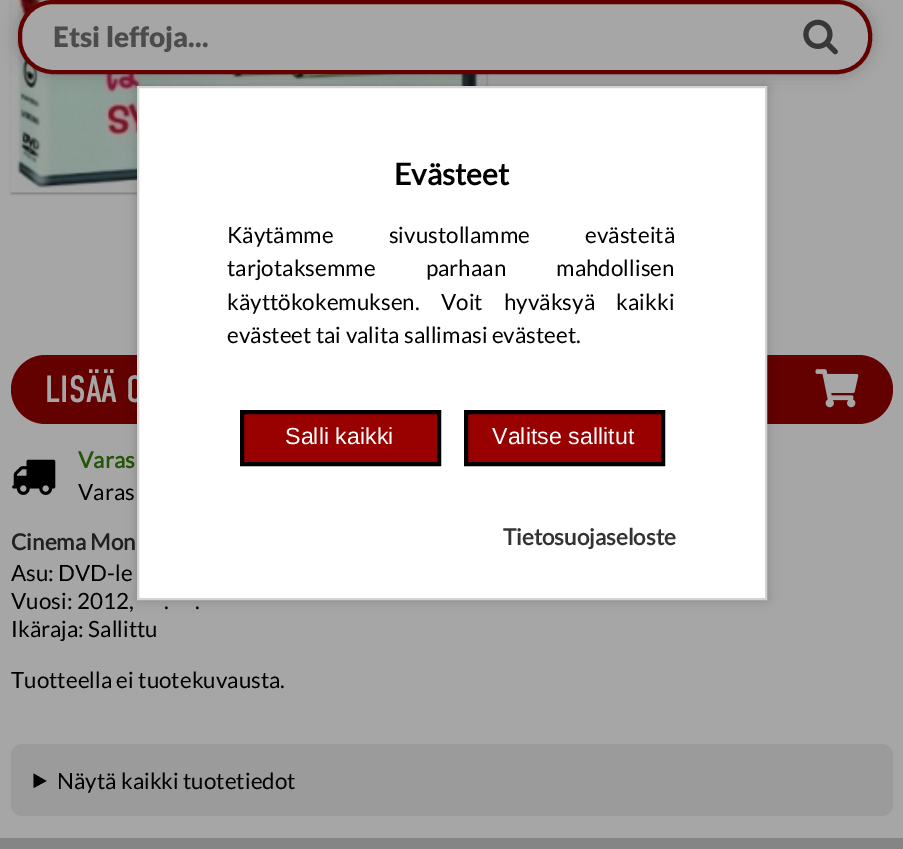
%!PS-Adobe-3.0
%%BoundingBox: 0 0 903 849
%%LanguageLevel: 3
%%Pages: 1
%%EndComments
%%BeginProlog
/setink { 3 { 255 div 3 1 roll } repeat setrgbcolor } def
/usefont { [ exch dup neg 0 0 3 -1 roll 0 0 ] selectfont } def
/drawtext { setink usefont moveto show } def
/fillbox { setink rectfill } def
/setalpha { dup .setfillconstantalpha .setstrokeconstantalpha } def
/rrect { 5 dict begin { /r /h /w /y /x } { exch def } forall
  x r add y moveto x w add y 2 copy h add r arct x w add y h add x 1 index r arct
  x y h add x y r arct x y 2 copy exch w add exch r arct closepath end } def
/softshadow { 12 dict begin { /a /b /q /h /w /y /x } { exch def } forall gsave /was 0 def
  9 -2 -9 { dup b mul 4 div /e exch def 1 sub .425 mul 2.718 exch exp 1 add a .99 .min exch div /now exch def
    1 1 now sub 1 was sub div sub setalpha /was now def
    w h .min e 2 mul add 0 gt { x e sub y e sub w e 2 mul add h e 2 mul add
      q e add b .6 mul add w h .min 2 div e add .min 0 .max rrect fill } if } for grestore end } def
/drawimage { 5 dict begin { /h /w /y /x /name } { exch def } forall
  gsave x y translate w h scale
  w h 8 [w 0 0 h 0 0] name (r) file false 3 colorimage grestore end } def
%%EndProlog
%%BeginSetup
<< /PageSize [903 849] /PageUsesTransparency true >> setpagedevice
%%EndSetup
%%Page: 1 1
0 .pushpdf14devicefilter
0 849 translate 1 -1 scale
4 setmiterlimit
0 0 903 849 133 133 133 fillbox
0 0 903 838 166 166 166 fillbox
0 0 0 setink
11 -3 476 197 0 1 0.3 softshadow
(assets/img2.rgb) 10 0 477 193 drawimage
18 0 854 74 35 8.5 0.2 softshadow
166 166 166 setink
20 2 850 70 33 rrect gsave fill grestore
99 0 0 setink
4 setlinewidth
stroke
(Etsi leffoja...) 53 47 /Lato-Black 28 76 76 76 drawtext
(assets/img1.rgb) 803 19 35 36 drawimage
99 0 0 setink
11 355 882 69 34.5 rrect fill
(LISÄÄ O) 45 402 /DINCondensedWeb-Regular 38 166 166 166 drawtext
(assets/img3.rgb) 815 369 44 39 drawimage
(assets/img4.rgb) 12 459 44 36 drawimage
(Varas) 78 468 /Lato-Bold 22.4 36 86 7 drawtext
(Varas) 78 500 /Lato-Regular 22.4 0 0 0 drawtext
(Cinema Mon) 11 550 /Lato-Bold 22.4 33 33 33 drawtext
(Asu: DVD-le) 11 581 /Lato-Regular 22.4 0 0 0 drawtext
(Vuosi: 2012,) 11 609 /Lato-Regular 22.4 0 0 0 drawtext
(.) 164 609 /Lato-Regular 22.4 0 0 0 drawtext
(.) 195 609 /Lato-Regular 22.4 0 0 0 drawtext
(Ikäraja: Sallittu) 11 637 /Lato-Regular 22.4 0 0 0 drawtext
(Tuotteella ei tuotekuvausta.) 11 688 /Lato-Regular 22.4 0 0 0 drawtext
155 155 155 setink
11 744 882 72 11 rrect fill
0 0 0 setink
33.5 773.5 moveto 46.5 781 lineto 33.5 788 lineto closepath fill
(Näytä kaikki tuotetiedot) 57 789 /Lato-Regular 22.4 0 0 0 drawtext
137 86 630 514 0 5.5 0.2 softshadow
255 255 255 setink
138 87 moveto 766 87 lineto 766 599 lineto 138 599 lineto closepath gsave fill grestore
211 211 211 setink
2 setlinewidth
stroke
(Evästeet) 394 185 /Lato-Bold 30 0 0 0 drawtext
/Lato-Regular 22.4 usefont
227 243 moveto 51 0 32 (Käytämme sivustollamme evästeitä) widthshow
227 276 moveto 46 0 32 (tarjotaksemme parhaan mahdollisen) widthshow
227 310 moveto 17 0 32 (käyttökokemuksen. Voit hyväksyä kaikki) widthshow
(evästeet tai valita sallimasi evästeet.) 227 343 /Lato-Regular 22.4 0 0 0 drawtext
153 0 0 setink
242 412 moveto 439 412 lineto 439 464 lineto 242 464 lineto closepath gsave fill grestore
0 0 0 setink
4 setlinewidth
stroke
(Salli kaikki) 285 444 /LiberationSans-Regular 23.25 255 255 255 drawtext
153 0 0 setink
466 412 moveto 663 412 lineto 663 464 lineto 466 464 lineto closepath gsave fill grestore
0 0 0 setink
stroke
(Valitse sallitut) 492 444 /LiberationSans-Regular 23.25 255 255 255 drawtext
(Tietosuojaseloste) 503 545 /Lato-Bold 22.4 51 51 51 drawtext
.poppdf14devicefilter showpage
%%EOF
